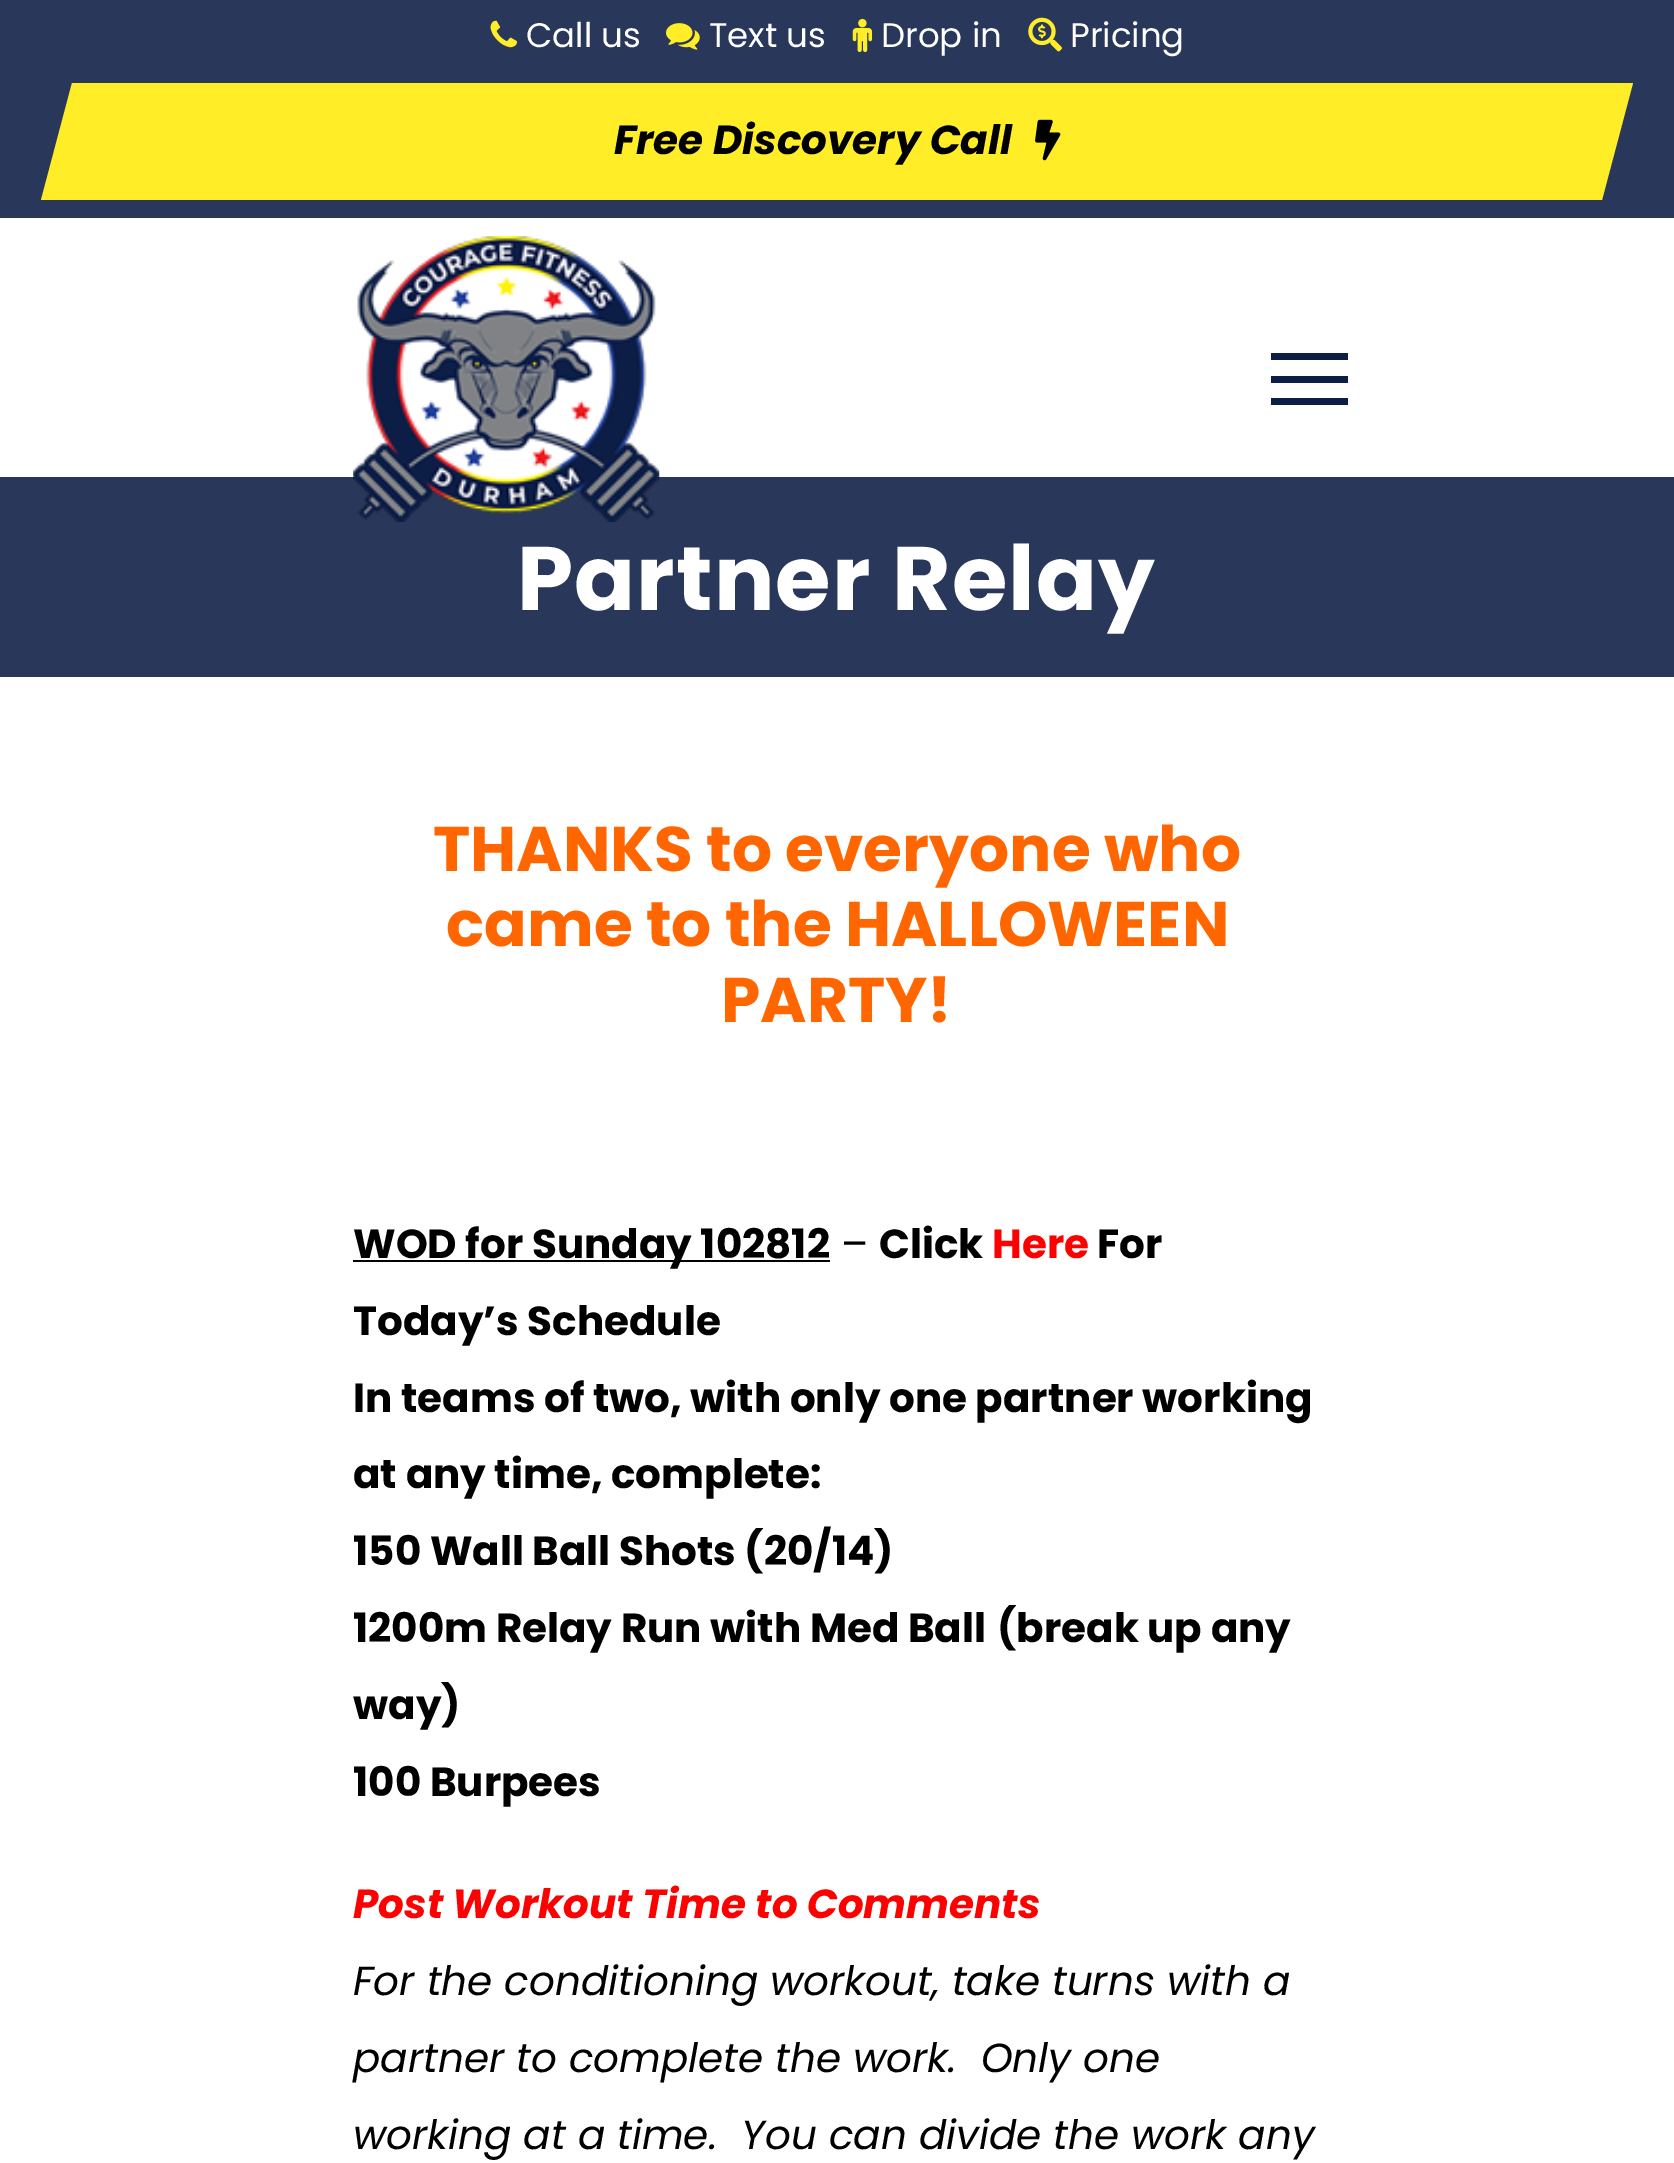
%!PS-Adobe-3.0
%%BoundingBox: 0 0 1674 2163
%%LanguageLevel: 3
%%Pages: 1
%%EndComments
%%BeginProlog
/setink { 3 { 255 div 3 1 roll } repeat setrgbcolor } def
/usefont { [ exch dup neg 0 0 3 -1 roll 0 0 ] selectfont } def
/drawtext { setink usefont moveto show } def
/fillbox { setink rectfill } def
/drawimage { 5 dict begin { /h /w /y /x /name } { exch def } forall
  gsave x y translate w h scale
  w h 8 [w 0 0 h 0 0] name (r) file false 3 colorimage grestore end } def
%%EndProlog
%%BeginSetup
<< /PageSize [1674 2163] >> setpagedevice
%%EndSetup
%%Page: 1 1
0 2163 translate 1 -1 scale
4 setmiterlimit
0 0 1674 2163 255 255 255 fillbox
0 0 1674 218 40 55 90 fillbox
(assets/img1.rgb) 490 20 27 28 drawimage
(Call us) 526 47 /Poppins-Regular 34 255 255 255 drawtext
(assets/img2.rgb) 666 23 34 27 drawimage
(Text us) 709 47 /Poppins-Regular 34 255 255 255 drawtext
(assets/img3.rgb) 852 18 21 35 drawimage
(Drop in) 881 47 /Poppins-Regular 34 255 255 255 drawtext
(assets/img4.rgb) 1028 17 34 35 drawimage
(Pricing) 1070 47 /Poppins-Regular 34 255 255 255 drawtext
255 237 39 setink
72 83 moveto 1633 83 lineto 1602 200 lineto 41 200 lineto closepath fill
(Free Discovery Call) 614 154 /Poppins-BoldItalic 40.5 0 0 0 drawtext
(assets/img5.rgb) 1035 119 26 42 drawimage
0 477 1674 200 40 55 90 fillbox
(assets/img6.rgb) 353 236 307 286 drawimage
1271 353 77 7 13 30 70 fillbox
1271 376 77 7 13 30 70 fillbox
1271 398 77 7 13 30 70 fillbox
/Poppins-Bold 90 usefont
255 255 255 setink
517 610 moveto 1.1 0 (Partner Relay) ashow
(THANKS to everyone who) 433 871 /Poppins-Bold 63 255 102 0 drawtext
(came to the HALLOWEEN) 446 946 /Poppins-Bold 63 255 102 0 drawtext
(PARTY!) 721 1022 /Poppins-Bold 63 255 102 0 drawtext
353 1260 477 2 0 0 0 fillbox
(WOD for Sunday 102812) 353 1258 /Poppins-Bold 40.5 0 0 0 drawtext
(–) 841 1258 /Poppins-Regular 40.5 0 0 0 drawtext
(Click) 879 1258 /Poppins-Bold 40.5 0 0 0 drawtext
(Here) 992 1258 /Poppins-Bold 40.5 255 0 0 drawtext
(For) 1097 1258 /Poppins-Bold 40.5 0 0 0 drawtext
(Today’s Schedule) 353 1335 /Poppins-Bold 40.5 0 0 0 drawtext
(In teams of two, with only one partner working) 353 1412 /Poppins-Bold 40.5 0 0 0 drawtext
(at any time, complete:) 353 1488 /Poppins-Bold 40.5 0 0 0 drawtext
(150 Wall Ball Shots \(20/14\)) 353 1565 /Poppins-Bold 40.5 0 0 0 drawtext
(1200m Relay Run with Med Ball) 353 1642 /Poppins-Bold 40.5 0 0 0 drawtext
(\(break up any) 997 1642 /Poppins-Bold 40.5 0 0 0 drawtext
(way\)) 353 1719 /Poppins-Bold 40.5 0 0 0 drawtext
(100 Burpees) 353 1796 /Poppins-Bold 40.5 0 0 0 drawtext
(Post Workout Time to Comments) 353 1918 /Poppins-BoldItalic 40.5 255 0 0 drawtext
(For the conditioning workout, take turns with a) 353 1995 /Poppins-Italic 40.5 0 0 0 drawtext
(partner to complete the work.  Only one) 353 2072 /Poppins-Italic 40.5 0 0 0 drawtext
(working at a time.  You can divide the work any) 353 2149 /Poppins-Italic 40.5 0 0 0 drawtext
showpage
%%EOF
